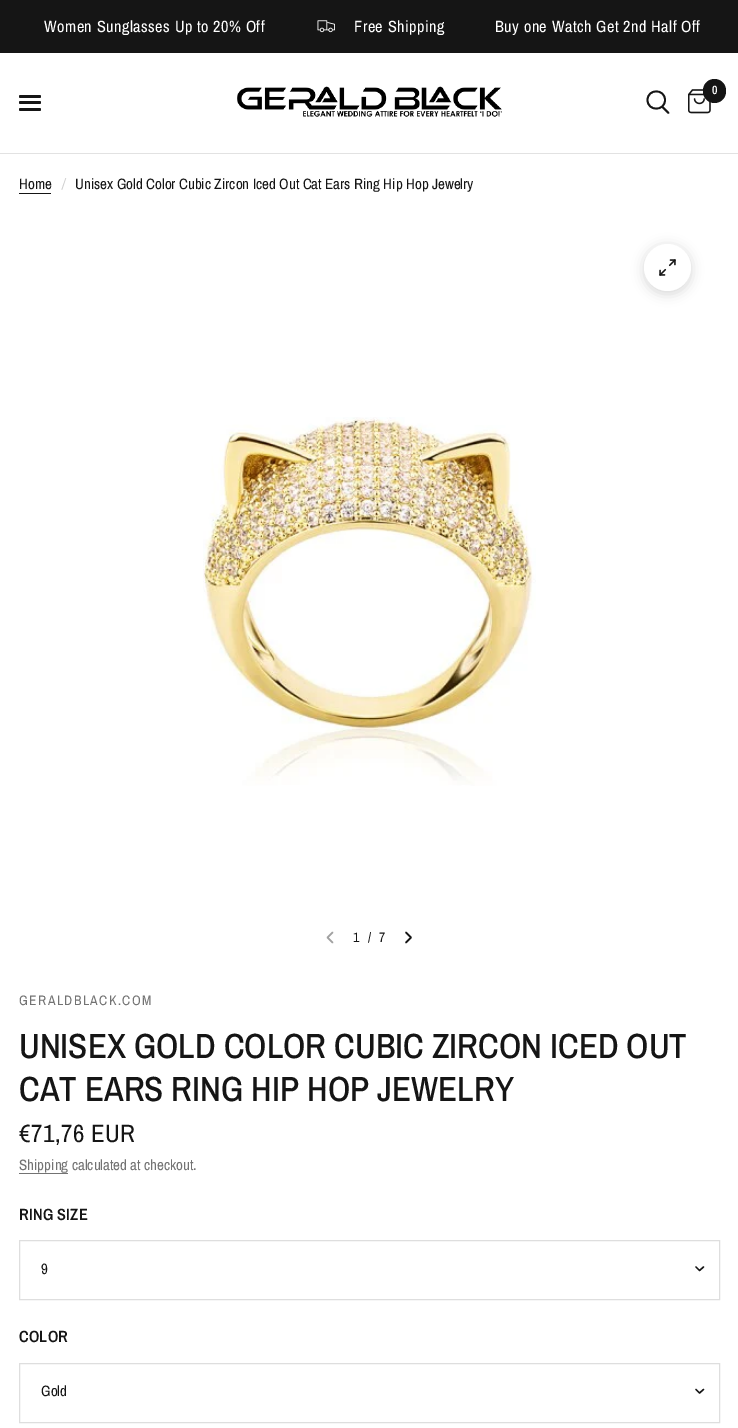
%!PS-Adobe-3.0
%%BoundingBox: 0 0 738 1428
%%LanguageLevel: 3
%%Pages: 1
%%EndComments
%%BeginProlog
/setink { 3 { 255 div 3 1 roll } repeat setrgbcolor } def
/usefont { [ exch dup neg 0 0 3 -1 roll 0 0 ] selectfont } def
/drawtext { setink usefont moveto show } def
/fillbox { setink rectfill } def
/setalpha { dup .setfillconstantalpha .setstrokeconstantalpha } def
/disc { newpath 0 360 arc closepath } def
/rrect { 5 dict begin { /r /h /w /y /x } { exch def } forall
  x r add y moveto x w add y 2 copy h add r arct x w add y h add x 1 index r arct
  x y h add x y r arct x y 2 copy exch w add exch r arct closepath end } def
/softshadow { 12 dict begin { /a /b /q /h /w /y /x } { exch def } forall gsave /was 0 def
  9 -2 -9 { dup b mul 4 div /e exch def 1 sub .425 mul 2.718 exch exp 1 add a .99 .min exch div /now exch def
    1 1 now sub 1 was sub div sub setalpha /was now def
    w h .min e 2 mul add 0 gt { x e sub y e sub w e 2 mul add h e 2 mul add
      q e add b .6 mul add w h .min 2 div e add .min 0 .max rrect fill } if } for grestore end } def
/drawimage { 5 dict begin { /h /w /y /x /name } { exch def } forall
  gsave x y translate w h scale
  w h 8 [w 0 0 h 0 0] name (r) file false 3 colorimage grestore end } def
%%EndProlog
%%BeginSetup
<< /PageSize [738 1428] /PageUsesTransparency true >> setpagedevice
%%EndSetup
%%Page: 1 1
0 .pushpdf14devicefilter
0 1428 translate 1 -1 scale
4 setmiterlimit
0 0 738 1428 255 255 255 fillbox
0 0 738 53 21 21 21 fillbox
/ArchivoNarrow-Regular 16.25 usefont
255 255 255 setink
44 32 moveto 0.5 0 (Women Sunglasses Up to 20% Off) ashow
(assets/img1.rgb) 317 20 18 13 drawimage
354 32 moveto 0.5 0 (Free Shipping) ashow
495 32 moveto 0.5 0 (Buy one Watch Get 2nd Half Off) ashow
0 153 738 1 226 226 226 fillbox
21 21 21 setink
19 95 22 3 1.5 rrect fill
19 101 22 3 1.5 rrect fill
19 108 22 3 1.5 rrect fill
(assets/img2.rgb) 237 86 265 31 drawimage
1.8 setlinewidth
1 setlinecap
1 setlinejoin
662.5 107 moveto 668.5 113 lineto 665 100 moveto 665 111.5 647.5 111.5 647.5 100 curveto 647.5 88.5 665 88.5 665 100 curveto closepath stroke
(assets/img3.rgb) 688 89 23 25 drawimage
703 79 23 24 11.5 rrect fill
(0) 712 94 /ArchivoNarrow-SemiBold 12 255 255 255 drawtext
(Home) 19 189 /ArchivoNarrow-Regular 15 21 21 21 drawtext
19 193 32 1 21 21 21 fillbox
(/) 62 189 /ArchivoNarrow-Italic 15 208 208 208 drawtext
(Unisex Gold Color Cubic Zircon Iced Out Cat Ears Ring Hip Hop Jewelry) 75 189 /ArchivoNarrow-Regular 15 21 21 21 drawtext
0 0 0 setink
644 246 47 48 23.5 6 0.15 softshadow
255 255 255 setink
667.5 267.5 23.5 disc fill
(assets/img4.rgb) 659 259 17 17 drawimage
(assets/img5.rgb) 203 417 333 369 drawimage
161 161 161 setink
1.5 setlinewidth
332.5 932.5 moveto 327.5 937.5 lineto 332.5 942.5 lineto stroke
(1) 353 942 /ArchivoNarrow-Regular 13.75 21 21 21 drawtext
(/) 368 942 /ArchivoNarrow-Regular 13.75 21 21 21 drawtext
(7) 379 942 /ArchivoNarrow-Regular 13.75 21 21 21 drawtext
406 932.5 moveto 411 937.5 lineto 406 942.5 lineto stroke
115 115 115 setink
19 1005 moveto 1.4 0 (GERALDBLACK.COM) ashow
(UNISEX GOLD COLOR CUBIC ZIRCON ICED OUT) 19 1058 /ArchivoNarrow-Medium 35 21 21 21 drawtext
(CAT EARS RING HIP HOP JEWELRY) 19 1101 /ArchivoNarrow-Medium 35 21 21 21 drawtext
/ArchivoNarrow-Regular 25 usefont
19 1142 moveto 0.5 0 (€71,76 EUR) ashow
(Shipping calculated at checkout.) 19 1170 /ArchivoNarrow-Regular 15 115 115 115 drawtext
19 1173 49 1 115 115 115 fillbox
/ArchivoNarrow-SemiBold 16.25 usefont
21 21 21 setink
19 1220 moveto 0.25 0 (RING SIZE) ashow
222 222 222 setink
1 setlinewidth
0 setlinecap
0 setlinejoin
19.5 1240.5 700 59 rectstroke
(9) 41 1274 /ArchivoNarrow-Regular 15 21 21 21 drawtext
1.4 setlinewidth
1 setlinecap
1 setlinejoin
703.5 1267 moveto 699.5 1270.5 lineto 696 1267 lineto stroke
/ArchivoNarrow-SemiBold 16.25 usefont
19 1342 moveto 0.25 0 (COLOR) ashow
222 222 222 setink
1 setlinewidth
0 setlinecap
0 setlinejoin
19.5 1363.5 700 59 rectstroke
(Gold) 41 1396 /ArchivoNarrow-Regular 15 21 21 21 drawtext
1.4 setlinewidth
1 setlinecap
1 setlinejoin
703.5 1389.5 moveto 699.5 1393 lineto 696 1389.5 lineto stroke
.poppdf14devicefilter showpage
%%EOF
